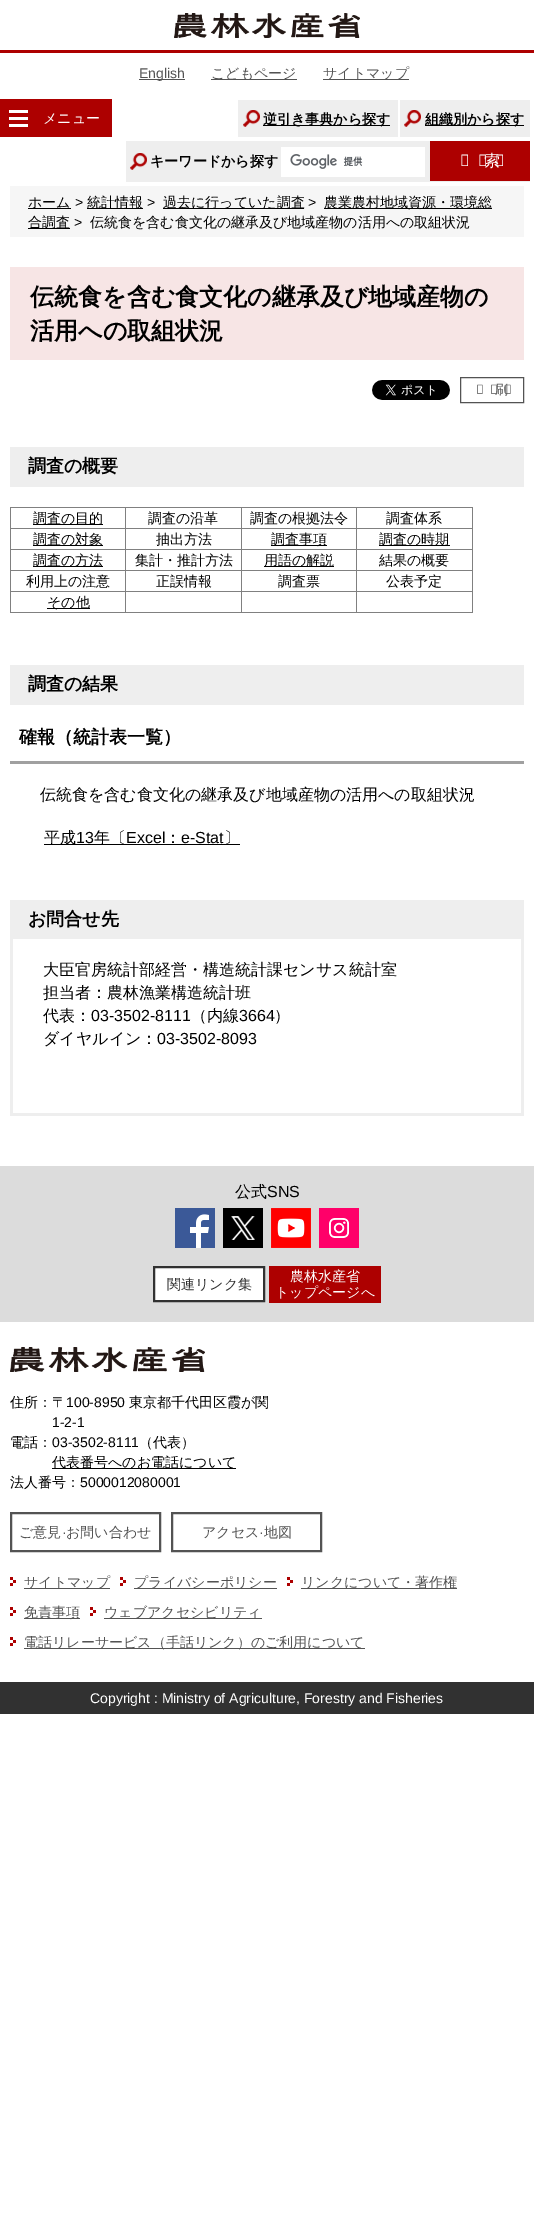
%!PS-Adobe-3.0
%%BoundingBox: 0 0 534 2238
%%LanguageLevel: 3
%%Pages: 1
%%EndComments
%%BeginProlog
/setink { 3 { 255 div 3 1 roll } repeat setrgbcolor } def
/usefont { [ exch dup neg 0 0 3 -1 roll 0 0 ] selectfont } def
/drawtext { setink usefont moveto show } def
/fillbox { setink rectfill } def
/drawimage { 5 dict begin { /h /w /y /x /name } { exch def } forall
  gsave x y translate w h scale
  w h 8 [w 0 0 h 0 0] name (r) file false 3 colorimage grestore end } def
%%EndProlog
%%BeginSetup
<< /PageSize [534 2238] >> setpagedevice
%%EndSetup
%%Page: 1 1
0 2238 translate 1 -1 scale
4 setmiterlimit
0 0 534 2238 255 255 255 fillbox
0 99 112 38 173 0 0 fillbox
(assets/img1.rgb) 9 110 19 17 drawimage
(メニュー) 43 123 /WenQuanYiZenHei-Medium 14 255 255 255 drawtext
0 50 534 3 173 0 0 fillbox
(assets/img2.rgb) 174 13 186 25 drawimage
139 79 46 1 83 83 83 fillbox
(English) 139 78 /LiberationSans-Regular 14 83 83 83 drawtext
211 79 86 1 83 83 83 fillbox
(こどもページ) 211 78 /WenQuanYiZenHei-Medium 14 83 83 83 drawtext
323 79 86 1 83 83 83 fillbox
(サイトマップ) 323 78 /WenQuanYiZenHei-Medium 14 83 83 83 drawtext
238 100 160 37 238 238 238 fillbox
(assets/img3.rgb) 243 110 17 17 drawimage
263 125 127 1 0 0 0 fillbox
(逆引き事典から探す) 263 124 /WenQuanYiZenHei-Bold 14 0 0 0 drawtext
400 100 130 37 238 238 238 fillbox
(assets/img3.rgb) 404 110 17 17 drawimage
425 125 99 1 0 0 0 fillbox
(組織別から探す) 425 124 /WenQuanYiZenHei-Bold 14 0 0 0 drawtext
126 141 404 41 238 238 238 fillbox
(assets/img3.rgb) 130 153 17 17 drawimage
(キーワードから探す) 150 166 /WenQuanYiZenHei-Bold 14 0 0 0 drawtext
281 147 144 30 255 255 255 fillbox
(assets/img4.rgb) 290 154 73 15 drawimage
430 141 100 40 173 0 0 fillbox
/NotoSans-Regular 16 usefont
255 255 255 setink
460 166 moveto 8 0 (検) ashow
(索) 484 166 /WenQuanYiZenHei-Medium 16 255 255 255 drawtext
10 186 514 51 246 246 246 fillbox
28 208 43 1 0 0 0 fillbox
(ホーム) 28 207 /WenQuanYiZenHei-Medium 14 0 0 0 drawtext
(>) 75 207 /LiberationSans-Regular 14 0 0 0 drawtext
87 208 56 1 0 0 0 fillbox
(統計情報) 87 207 /WenQuanYiZenHei-Medium 14 0 0 0 drawtext
(>) 147 207 /LiberationSans-Regular 14 0 0 0 drawtext
163 208 141 1 0 0 0 fillbox
(過去に行っていた調査) 163 207 /WenQuanYiZenHei-Medium 14 0 0 0 drawtext
(>) 308 207 /LiberationSans-Regular 14 0 0 0 drawtext
324 208 168 1 0 0 0 fillbox
(農業農村地域資源・環境総) 324 207 /WenQuanYiZenHei-Medium 14 0 0 0 drawtext
28 228 42 1 0 0 0 fillbox
(合調査) 28 227 /WenQuanYiZenHei-Medium 14 0 0 0 drawtext
(>) 74 227 /LiberationSans-Regular 14 0 0 0 drawtext
(伝統食を含む食文化の継承及び地域産物の活用への取組状況) 90 227 /WenQuanYiZenHei-Medium 14 0 0 0 drawtext
10 267 514 93 247 229 229 fillbox
(伝統食を含む食文化の継承及び地域産物の) 30 305 /WenQuanYiZenHei-Bold 24 0 0 0 drawtext
(活用への取組状況) 30 339 /WenQuanYiZenHei-Bold 24 0 0 0 drawtext
(assets/img5.rgb) 372 380 78 20 drawimage
83 83 83 setink
460.5 377.5 63 25 rectstroke
/NotoSans-Regular 13 usefont
476 394 moveto 6 0 (印) ashow
(刷) 495 394 /WenQuanYiZenHei-Medium 13 83 83 83 drawtext
10 447 514 40 238 238 238 fillbox
(調査の概要) 28 472 /WenQuanYiZenHei-Bold 18 0 0 0 drawtext
10 507 463 1 128 128 128 fillbox
472 507 1 106 128 128 128 fillbox
10 612 463 1 128 128 128 fillbox
10 507 1 106 128 128 128 fillbox
33 524 70 1 0 0 0 fillbox
(調査の目的) 33 523 /WenQuanYiZenHei-Medium 14 0 0 0 drawtext
356 528 117 1 128 128 128 fillbox
356 549 117 1 128 128 128 fillbox
356 570 117 1 128 128 128 fillbox
356 591 117 1 128 128 128 fillbox
356 591 1 22 128 128 128 fillbox
241 591 116 1 128 128 128 fillbox
356 570 1 22 128 128 128 fillbox
241 570 116 1 128 128 128 fillbox
356 549 1 22 128 128 128 fillbox
241 549 116 1 128 128 128 fillbox
356 528 1 22 128 128 128 fillbox
241 528 116 1 128 128 128 fillbox
241 591 1 22 128 128 128 fillbox
125 591 117 1 128 128 128 fillbox
241 570 1 22 128 128 128 fillbox
125 570 117 1 128 128 128 fillbox
241 549 1 22 128 128 128 fillbox
125 549 117 1 128 128 128 fillbox
241 528 1 22 128 128 128 fillbox
125 528 117 1 128 128 128 fillbox
125 591 1 22 128 128 128 fillbox
10 591 116 1 128 128 128 fillbox
125 570 1 22 128 128 128 fillbox
10 570 116 1 128 128 128 fillbox
125 549 1 22 128 128 128 fillbox
10 549 116 1 128 128 128 fillbox
125 528 1 22 128 128 128 fillbox
10 528 116 1 128 128 128 fillbox
125 507 1 22 128 128 128 fillbox
(調査の沿革) 148 523 /WenQuanYiZenHei-Medium 14 0 0 0 drawtext
241 507 1 22 128 128 128 fillbox
(調査の根拠法令) 250 523 /WenQuanYiZenHei-Medium 14 0 0 0 drawtext
356 507 1 22 128 128 128 fillbox
(調査体系) 386 523 /WenQuanYiZenHei-Medium 14 0 0 0 drawtext
33 545 70 1 0 0 0 fillbox
(調査の対象) 33 544 /WenQuanYiZenHei-Medium 14 0 0 0 drawtext
(抽出方法) 156 544 /WenQuanYiZenHei-Medium 14 0 0 0 drawtext
271 545 56 1 0 0 0 fillbox
(調査事項) 271 544 /WenQuanYiZenHei-Medium 14 0 0 0 drawtext
379 545 71 1 0 0 0 fillbox
(調査の時期) 379 544 /WenQuanYiZenHei-Medium 14 0 0 0 drawtext
33 566 70 1 0 0 0 fillbox
(調査の方法) 33 565 /WenQuanYiZenHei-Medium 14 0 0 0 drawtext
(集計・推計方法) 135 565 /WenQuanYiZenHei-Medium 14 0 0 0 drawtext
264 566 70 1 0 0 0 fillbox
(用語の解説) 264 565 /WenQuanYiZenHei-Medium 14 0 0 0 drawtext
(結果の概要) 379 565 /WenQuanYiZenHei-Medium 14 0 0 0 drawtext
(利用上の注意) 26 586 /WenQuanYiZenHei-Medium 14 0 0 0 drawtext
(正誤情報) 156 586 /WenQuanYiZenHei-Medium 14 0 0 0 drawtext
(調査票) 278 586 /WenQuanYiZenHei-Medium 14 0 0 0 drawtext
(公表予定) 386 586 /WenQuanYiZenHei-Medium 14 0 0 0 drawtext
47 608 43 1 0 0 0 fillbox
(その他) 47 607 /WenQuanYiZenHei-Medium 14 0 0 0 drawtext
10 665 514 40 238 238 238 fillbox
(調査の結果) 28 690 /WenQuanYiZenHei-Bold 18 0 0 0 drawtext
10 761 514 3 160 160 160 fillbox
(確報（統計表一覧）) 19 743 /WenQuanYiZenHei-Bold 18 0 0 0 drawtext
(伝統食を含む食文化の継承及び地域産物の活用への取組状況) 40 800 /WenQuanYiZenHei-Medium 16 0 0 0 drawtext
44 844 196 1 0 0 0 fillbox
(平成) 44 843 /WenQuanYiZenHei-Medium 16 0 0 0 drawtext
(13) 76 843 /LiberationSans-Regular 16 0 0 0 drawtext
(年〔) 94 843 /WenQuanYiZenHei-Medium 16 0 0 0 drawtext
(Excel) 126 843 /LiberationSans-Regular 16 0 0 0 drawtext
(：) 165 843 /WenQuanYiZenHei-Medium 16 0 0 0 drawtext
(e-Stat) 181 843 /LiberationSans-Regular 16 0 0 0 drawtext
(〕) 224 843 /WenQuanYiZenHei-Medium 16 0 0 0 drawtext
521 900 3 216 238 238 238 fillbox
10 1113 514 3 238 238 238 fillbox
10 900 3 216 238 238 238 fillbox
13 900 508 39 238 238 238 fillbox
(お問合せ先) 28 925 /WenQuanYiZenHei-Bold 18 0 0 0 drawtext
(大臣官房統計部経営・構造統計課センサス統計室) 43 975 /WenQuanYiZenHei-Medium 16 0 0 0 drawtext
(担当者：農林漁業構造統計班) 43 998 /WenQuanYiZenHei-Medium 16 0 0 0 drawtext
(代表：) 43 1021 /WenQuanYiZenHei-Medium 16 0 0 0 drawtext
(03-3502-8111) 91 1021 /LiberationSans-Regular 16 0 0 0 drawtext
(（内線) 191 1021 /WenQuanYiZenHei-Medium 16 0 0 0 drawtext
(3664) 239 1021 /LiberationSans-Regular 16 0 0 0 drawtext
(）) 274 1021 /WenQuanYiZenHei-Medium 16 0 0 0 drawtext
(ダイヤルイン：) 43 1044 /WenQuanYiZenHei-Medium 16 0 0 0 drawtext
(03-3502-8093) 157 1044 /LiberationSans-Regular 16 0 0 0 drawtext
0 1166 534 156 220 220 220 fillbox
(公式) 235 1197 /WenQuanYiZenHei-Medium 16 0 0 0 drawtext
(SNS) 267 1197 /LiberationSans-Regular 16 0 0 0 drawtext
(assets/img6.rgb) 175 1208 40 40 drawimage
(assets/img7.rgb) 223 1208 40 40 drawimage
(assets/img8.rgb) 271 1208 40 40 drawimage
(assets/img9.rgb) 319 1208 40 40 drawimage
255 255 255 setink
154 1267 moveto 264 1267 lineto 264 1301 lineto 154 1301 lineto closepath gsave fill grestore
49 49 49 setink
2 setlinewidth
stroke
(関連リンク集) 167 1289 /WenQuanYiZenHei-Medium 14 49 49 49 drawtext
269 1266 112 37 173 0 0 fillbox
(農林水産省) 290 1281 /WenQuanYiZenHei-Medium 14 255 255 255 drawtext
(トップページへ) 275 1297 /WenQuanYiZenHei-Medium 14 255 255 255 drawtext
(assets/img10.rgb) 10 1347 195 25 drawimage
(住所：〒) 10 1407 /WenQuanYiZenHei-Medium 14 0 0 0 drawtext
(100-8950) 66 1407 /LiberationSans-Regular 14 0 0 0 drawtext
(東京都千代田区霞が関) 129 1407 /WenQuanYiZenHei-Medium 14 0 0 0 drawtext
(1-2-1) 52 1427 /LiberationSans-Regular 14 0 0 0 drawtext
(電話：) 10 1447 /WenQuanYiZenHei-Medium 14 0 0 0 drawtext
(03-3502-8111) 52 1447 /LiberationSans-Regular 14 0 0 0 drawtext
(（代表）) 139 1447 /WenQuanYiZenHei-Medium 14 0 0 0 drawtext
52 1468 184 1 0 0 0 fillbox
(代表番号へのお電話について) 52 1467 /WenQuanYiZenHei-Medium 14 0 0 0 drawtext
(法人番号：) 10 1487 /WenQuanYiZenHei-Medium 14 0 0 0 drawtext
(5000012080001) 80 1487 /LiberationSans-Regular 14 0 0 0 drawtext
83 83 83 setink
11 1513 149 38 rectstroke
(ご意見) 19 1537 /WenQuanYiZenHei-Medium 14 83 83 83 drawtext
(·) 62 1537 /LiberationSans-Regular 14 83 83 83 drawtext
(お問い合わせ) 66 1537 /WenQuanYiZenHei-Medium 14 83 83 83 drawtext
172 1513 149 38 rectstroke
(アクセス) 202 1537 /WenQuanYiZenHei-Medium 14 83 83 83 drawtext
(·) 259 1537 /LiberationSans-Regular 14 83 83 83 drawtext
(地図) 264 1537 /WenQuanYiZenHei-Medium 14 83 83 83 drawtext
(assets/img11.rgb) 10 1577 6 9 drawimage
24 1588 86 1 83 83 83 fillbox
(サイトマップ) 24 1587 /WenQuanYiZenHei-Medium 14 83 83 83 drawtext
(assets/img11.rgb) 120 1577 6 9 drawimage
134 1588 143 1 83 83 83 fillbox
(プライバシーポリシー) 134 1587 /WenQuanYiZenHei-Medium 14 83 83 83 drawtext
(assets/img11.rgb) 287 1577 6 9 drawimage
301 1588 156 1 83 83 83 fillbox
(リンクについて・著作権) 301 1587 /WenQuanYiZenHei-Medium 14 83 83 83 drawtext
(assets/img11.rgb) 10 1607 6 9 drawimage
24 1618 56 1 83 83 83 fillbox
(免責事項) 24 1617 /WenQuanYiZenHei-Medium 14 83 83 83 drawtext
(assets/img11.rgb) 90 1607 6 9 drawimage
104 1618 158 1 83 83 83 fillbox
(ウェブアクセシビリティ) 104 1617 /WenQuanYiZenHei-Medium 14 83 83 83 drawtext
(assets/img11.rgb) 10 1637 6 9 drawimage
24 1648 341 1 83 83 83 fillbox
(電話リレーサービス（手話リンク）のご利用について) 24 1647 /WenQuanYiZenHei-Medium 14 83 83 83 drawtext
0 1682 534 32 49 49 49 fillbox
(Copyright : Ministry of Agriculture, Forestry and Fisheries) 90 1703 /LiberationSans-Regular 14 255 255 255 drawtext
showpage
%%EOF
